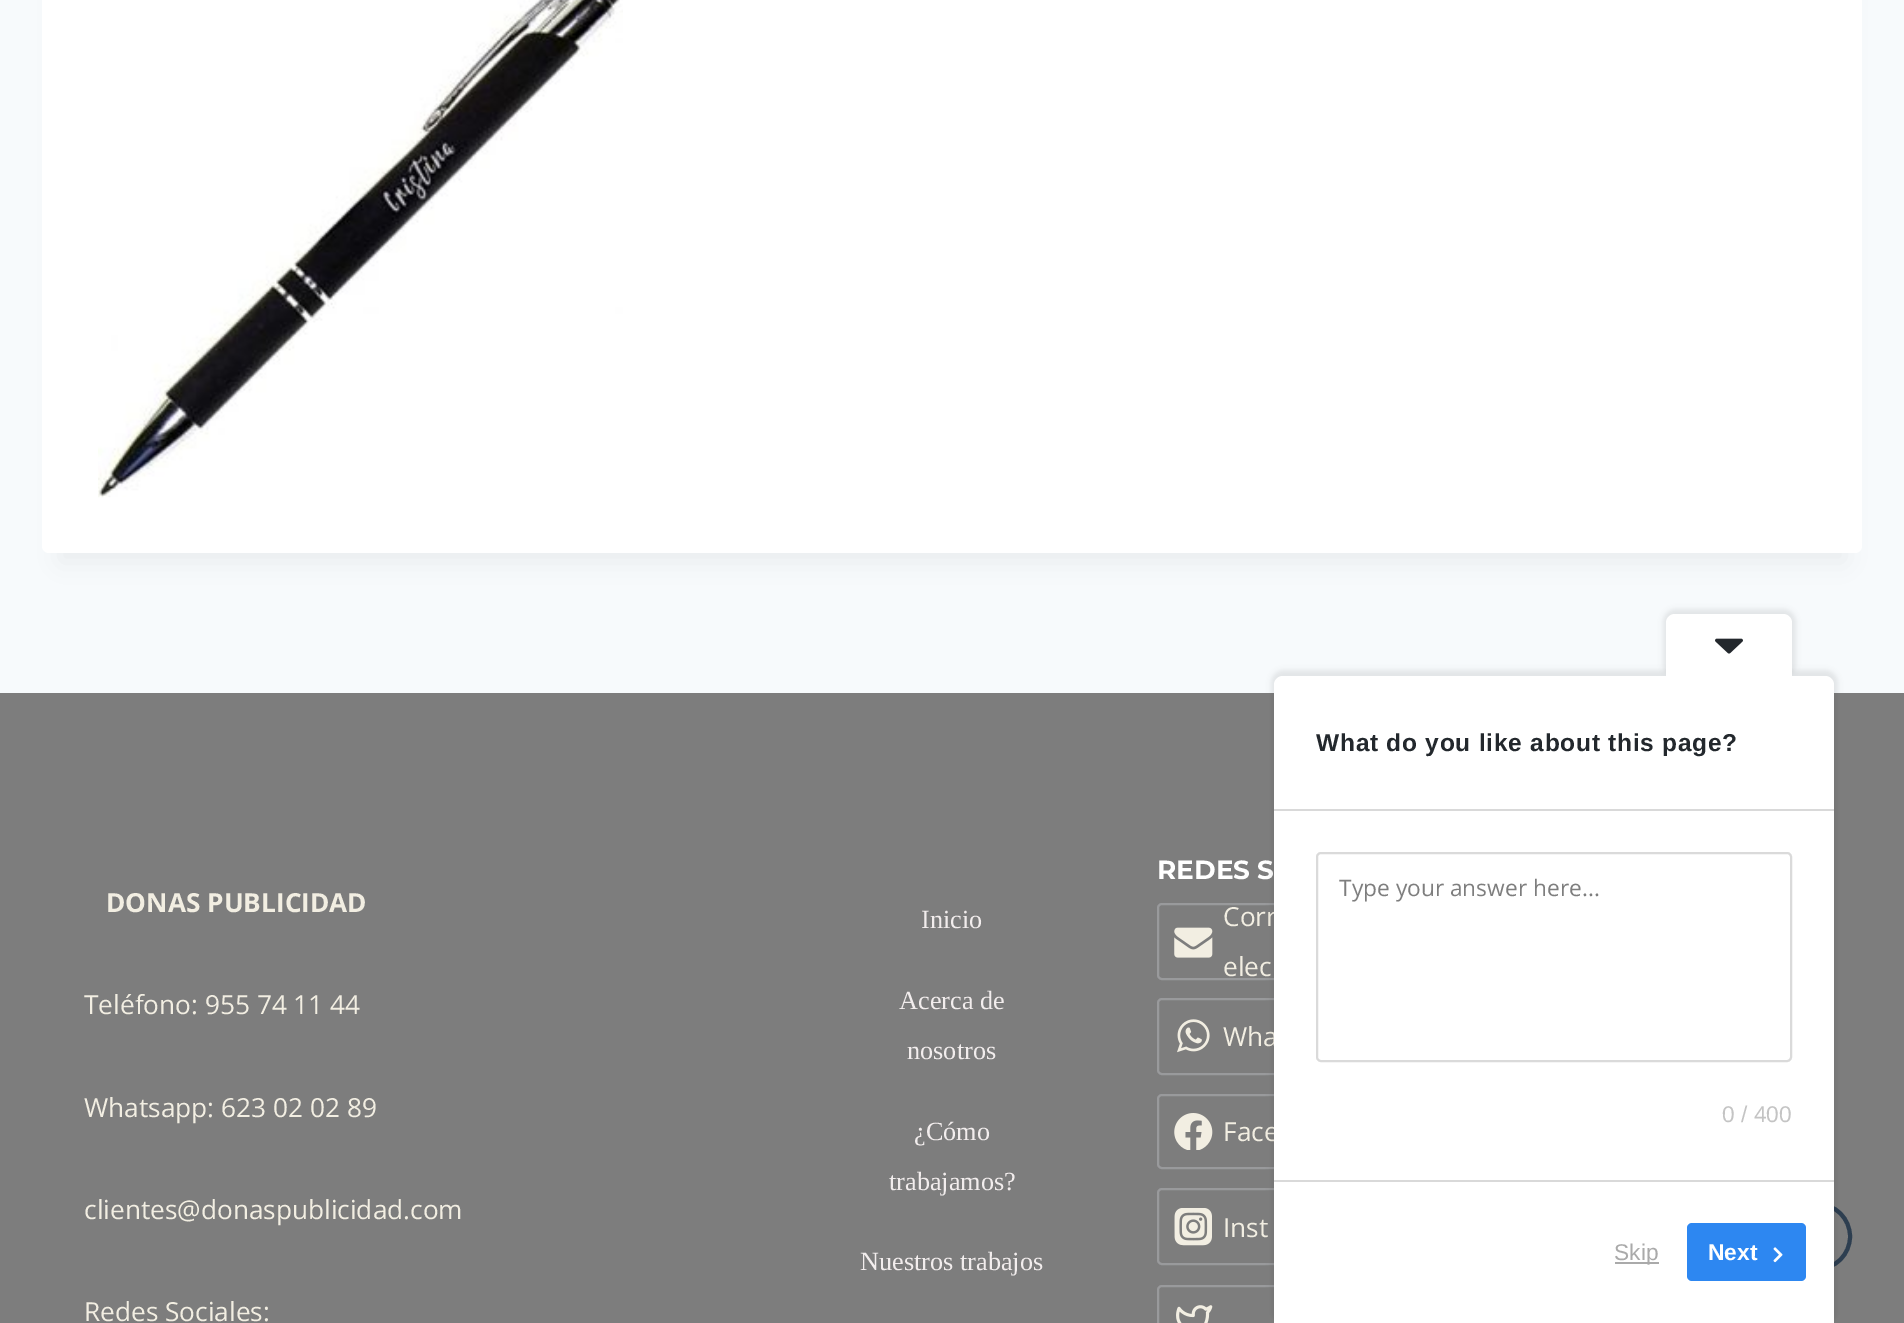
%!PS-Adobe-3.0
%%BoundingBox: 0 0 1904 1323
%%LanguageLevel: 3
%%Pages: 1
%%EndComments
%%BeginProlog
/setink { 3 { 255 div 3 1 roll } repeat setrgbcolor } def
/usefont { [ exch dup neg 0 0 3 -1 roll 0 0 ] selectfont } def
/drawtext { setink usefont moveto show } def
/fillbox { setink rectfill } def
/setalpha { dup .setfillconstantalpha .setstrokeconstantalpha } def
/disc { newpath 0 360 arc closepath } def
/rrect { 5 dict begin { /r /h /w /y /x } { exch def } forall
  x r add y moveto x w add y 2 copy h add r arct x w add y h add x 1 index r arct
  x y h add x y r arct x y 2 copy exch w add exch r arct closepath end } def
/softshadow { 12 dict begin { /a /b /q /h /w /y /x } { exch def } forall gsave /was 0 def
  9 -2 -9 { dup b mul 4 div /e exch def 1 sub .425 mul 2.718 exch exp 1 add a .99 .min exch div /now exch def
    1 1 now sub 1 was sub div sub setalpha /was now def
    w h .min e 2 mul add 0 gt { x e sub y e sub w e 2 mul add h e 2 mul add
      q e add b .6 mul add w h .min 2 div e add .min 0 .max rrect fill } if } for grestore end } def
/drawimage { 5 dict begin { /h /w /y /x /name } { exch def } forall
  gsave x y translate w h scale
  w h 8 [w 0 0 h 0 0] name (r) file false 3 colorimage grestore end } def
%%EndProlog
%%BeginSetup
<< /PageSize [1904 1323] /PageUsesTransparency true >> setpagedevice
%%EndSetup
%%Page: 1 1
0 .pushpdf14devicefilter
0 1323 translate 1 -1 scale
4 setmiterlimit
0 0 1904 1323 247 250 252 fillbox
0 0 0 setink
60 -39 1785 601 0 13 0.05 softshadow
255 255 255 setink
42 -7 1820 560 7 rrect fill
(assets/img1.rgb) 98 0 525 498 drawimage
0 693 1904 630 125 125 125 fillbox
(DONAS PUBLICIDAD) 106 912 /OpenSans-Bold 26.25 242 238 226 drawtext
(Teléfono: 955 74 11 44) 84 1014 /OpenSans-Regular 26.25 242 238 226 drawtext
(Whatsapp: 623 02 02 89) 84 1117 /OpenSans-Regular 26.25 242 238 226 drawtext
(clientes@donaspublicidad.com) 84 1219 /OpenSans-Regular 26.25 242 238 226 drawtext
(Redes Sociales:) 84 1321 /OpenSans-Regular 26.25 242 238 226 drawtext
(Inicio) 921 928 /LiberationSerif-Regular 26.25 242 237 237 drawtext
(Acerca de) 899 1009 /LiberationSerif-Regular 26.25 242 237 237 drawtext
(nosotros) 907 1059 /LiberationSerif-Regular 26.25 242 237 237 drawtext
(¿Cómo) 914 1140 /LiberationSerif-Regular 26.25 242 237 237 drawtext
(trabajamos?) 889 1190 /LiberationSerif-Regular 26.25 242 237 237 drawtext
(Nuestros trabajos) 860 1270 /LiberationSerif-Regular 26.25 242 237 237 drawtext
(REDES S) 1157 879 /Montserrat-Bold 26.25 255 255 255 drawtext
153 154 156 setink
2 setlinewidth
1158 904 304 75 4 rrect stroke
(assets/img2.rgb) 1174 927 39 31 drawimage
(Corr) 1223 926 /OpenSans-Regular 26.25 242 238 226 drawtext
(elec) 1223 976 /OpenSans-Regular 26.25 242 238 226 drawtext
153 154 156 setink
1158 999 206 75 4 rrect stroke
(assets/img3.rgb) 1177 1019 33 34 drawimage
(Wha) 1223 1046 /OpenSans-Regular 26.25 242 238 226 drawtext
153 154 156 setink
1158 1095 197 73 4 rrect stroke
(assets/img4.rgb) 1174 1113 39 37 drawimage
(Face) 1223 1141 /OpenSans-Regular 26.25 242 238 226 drawtext
153 154 156 setink
1158 1189 204 75 4 rrect stroke
(assets/img5.rgb) 1174 1208 38 38 drawimage
(Inst) 1223 1237 /OpenSans-Regular 26.25 242 238 226 drawtext
153 154 156 setink
1158 1286 166 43 4 rrect stroke
(assets/img6.rgb) 1176 1305 37 18 drawimage
45 62 80 setink
4 setlinewidth
1817.5 1236.5 32.5 disc stroke
0 0 0 setink
1271 670 567 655 12 2.5 0.07 softshadow
255 255 255 setink
1283 676 moveto 1825 676 lineto 1830 676 1834 680 1834 685 curveto 1834 1323 lineto 1274 1323 lineto 1274 685 lineto 1274 680 1278 676 1283 676 curveto closepath fill
gsave
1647 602 moveto 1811 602 lineto 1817 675.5 lineto 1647 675.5 lineto closepath clip newpath
0 0 0 setink
1663 609 133 68 12 2.5 0.07 softshadow
grestore
1675 614 moveto 1783 614 lineto 1788 614 1792 618 1792 623 curveto 1792 676 lineto 1666 676 lineto 1666 623 lineto 1666 618 1670 614 1675 614 curveto closepath fill
(assets/img7.rgb) 1715 638 28 16 drawimage
/LiberationSans-Bold 24.5 usefont
35 40 45 setink
1316 751 moveto 0.75 0 (What do you like about this page?) ashow
1274 809 560 2 217 217 217 fillbox
1274 1180 560 2 217 217 217 fillbox
218 218 218 setink
2 setlinewidth
1317 853 474 208 4 rrect stroke
(Type your answer here...) 1339 896 /OpenSans-Regular 22.75 126 126 126 drawtext
(0 / 400) 1722 1122 /LiberationSans-Regular 22.75 196 196 196 drawtext
1615 1262 44 2 170 170 170 fillbox
(Skip) 1614 1260 /LiberationSans-Regular 22.75 170 170 170 drawtext
45 135 241 setink
1687 1223 119 58 5 rrect fill
(Next) 1708 1260 /LiberationSans-Bold 22.75 255 255 255 drawtext
(assets/img8.rgb) 1773 1247 10 16 drawimage
.poppdf14devicefilter showpage
%%EOF
